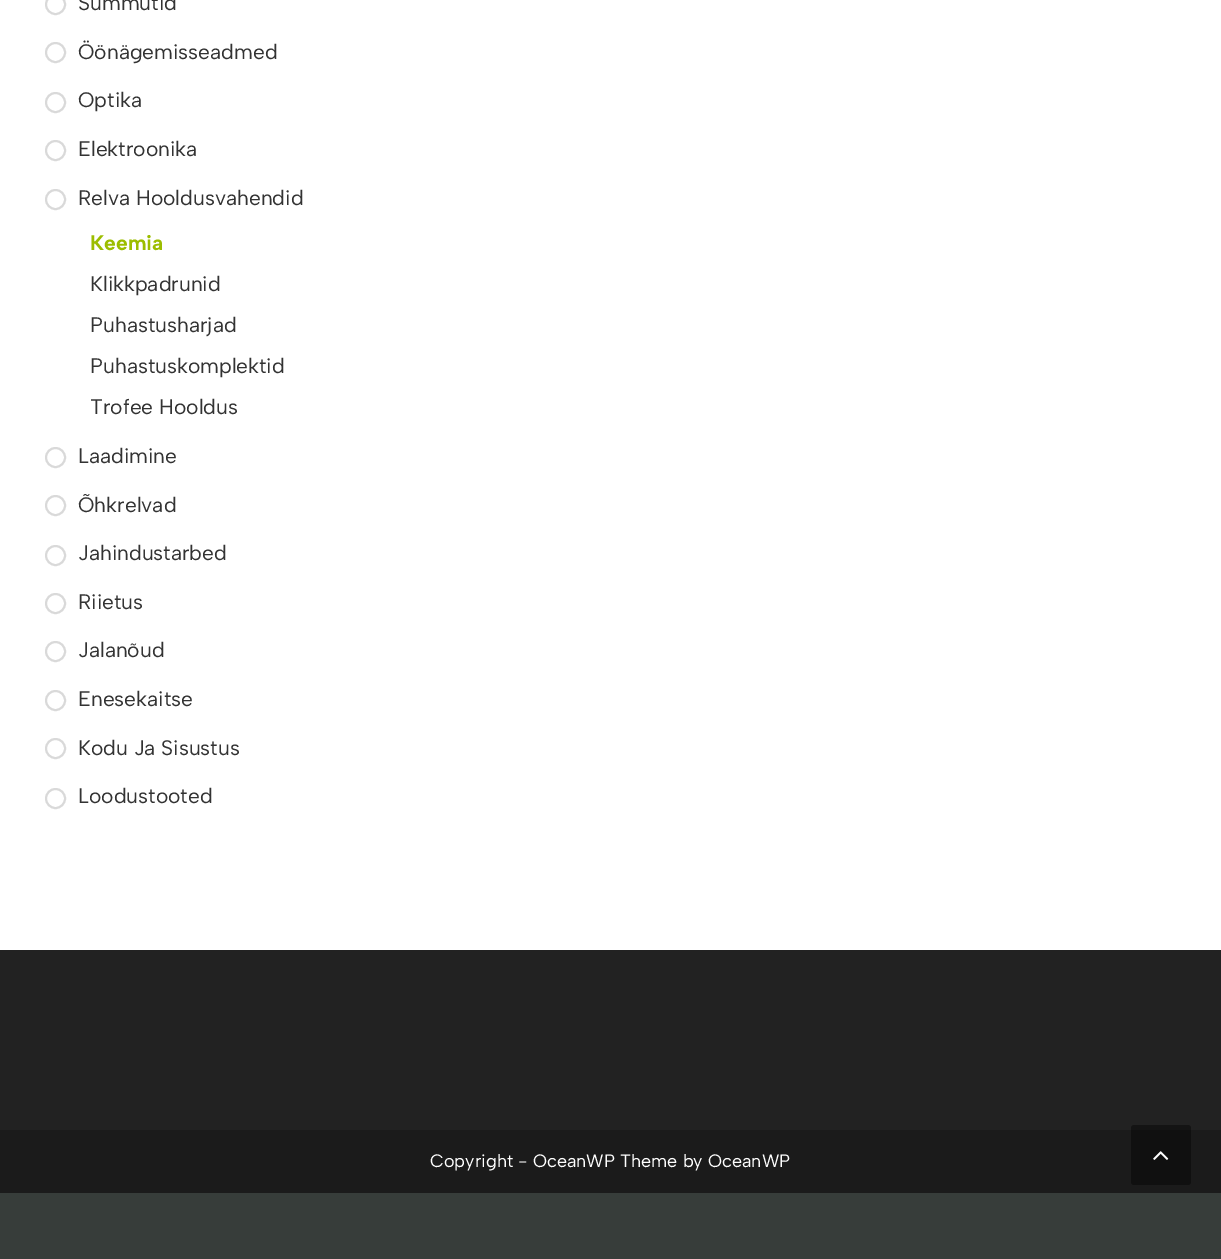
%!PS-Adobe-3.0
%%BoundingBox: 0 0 1221 1259
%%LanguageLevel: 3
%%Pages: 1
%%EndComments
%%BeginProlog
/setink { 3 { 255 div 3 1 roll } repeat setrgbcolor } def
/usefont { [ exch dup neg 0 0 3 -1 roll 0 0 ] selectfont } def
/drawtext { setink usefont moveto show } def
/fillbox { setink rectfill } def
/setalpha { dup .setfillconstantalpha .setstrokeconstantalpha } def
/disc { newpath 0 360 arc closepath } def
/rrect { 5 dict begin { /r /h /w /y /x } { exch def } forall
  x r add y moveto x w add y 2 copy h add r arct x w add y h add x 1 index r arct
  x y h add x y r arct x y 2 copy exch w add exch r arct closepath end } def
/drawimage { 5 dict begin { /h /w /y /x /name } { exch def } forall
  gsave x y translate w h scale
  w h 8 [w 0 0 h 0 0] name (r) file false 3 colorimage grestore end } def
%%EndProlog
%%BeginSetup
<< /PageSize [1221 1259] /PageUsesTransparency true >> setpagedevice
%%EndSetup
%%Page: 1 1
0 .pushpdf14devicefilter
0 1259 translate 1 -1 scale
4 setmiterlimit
0 0 1221 1259 55 61 58 fillbox
0 0 1221 950 255 255 255 fillbox
217 217 217 setink
2 setlinewidth
55.5 4.5 9.5 disc stroke
(Summutid) 78 10 /AlbertSans-Regular 21 51 51 51 drawtext
217 217 217 setink
55.5 52.5 9.5 disc stroke
(Öönägemisseadmed) 78 59 /AlbertSans-Regular 21 51 51 51 drawtext
217 217 217 setink
55.5 102.5 9.5 disc stroke
(Optika) 78 107 /AlbertSans-Regular 21 51 51 51 drawtext
217 217 217 setink
55.5 150.5 9.5 disc stroke
(Elektroonika) 78 156 /AlbertSans-Regular 21 51 51 51 drawtext
217 217 217 setink
55.5 199.5 9.5 disc stroke
(Relva Hooldusvahendid) 78 205 /AlbertSans-Regular 21 51 51 51 drawtext
(Keemia) 90 250 /AlbertSans-Bold 21 156 189 0 drawtext
(Klikkpadrunid) 90 291 /AlbertSans-Regular 21 51 51 51 drawtext
(Puhastusharjad) 90 332 /AlbertSans-Regular 21 51 51 51 drawtext
(Puhastuskomplektid) 90 373 /AlbertSans-Regular 21 51 51 51 drawtext
(Trofee Hooldus) 90 414 /AlbertSans-Regular 21 51 51 51 drawtext
217 217 217 setink
55.5 457.5 9.5 disc stroke
(Laadimine) 78 463 /AlbertSans-Regular 21 51 51 51 drawtext
217 217 217 setink
55.5 505.5 9.5 disc stroke
(Õhkrelvad) 78 512 /AlbertSans-Regular 21 51 51 51 drawtext
217 217 217 setink
55.5 555.5 9.5 disc stroke
(Jahindustarbed) 78 560 /AlbertSans-Regular 21 51 51 51 drawtext
217 217 217 setink
55.5 603.5 9.5 disc stroke
(Riietus) 78 609 /AlbertSans-Regular 21 51 51 51 drawtext
217 217 217 setink
55.5 651.5 9.5 disc stroke
(Jalanõud) 78 657 /AlbertSans-Regular 21 51 51 51 drawtext
217 217 217 setink
55.5 700.5 9.5 disc stroke
(Enesekaitse) 78 706 /AlbertSans-Regular 21 51 51 51 drawtext
217 217 217 setink
55.5 748.5 9.5 disc stroke
(Kodu Ja Sisustus) 78 755 /AlbertSans-Regular 21 51 51 51 drawtext
217 217 217 setink
55.5 798.5 9.5 disc stroke
(Loodustooted) 78 803 /AlbertSans-Regular 21 51 51 51 drawtext
0 950 1221 180 34 34 34 fillbox
0 1130 1221 63 27 27 27 fillbox
(Copyright - OceanWP Theme by OceanWP) 430 1167 /AlbertSans-Regular 18 255 255 255 drawtext
0.4 setalpha
0 0 0 setink
1131 1125 60 60 3 rrect fill
1 setalpha
(assets/img1.rgb) 1153 1151 16 9 drawimage
.poppdf14devicefilter showpage
%%EOF
